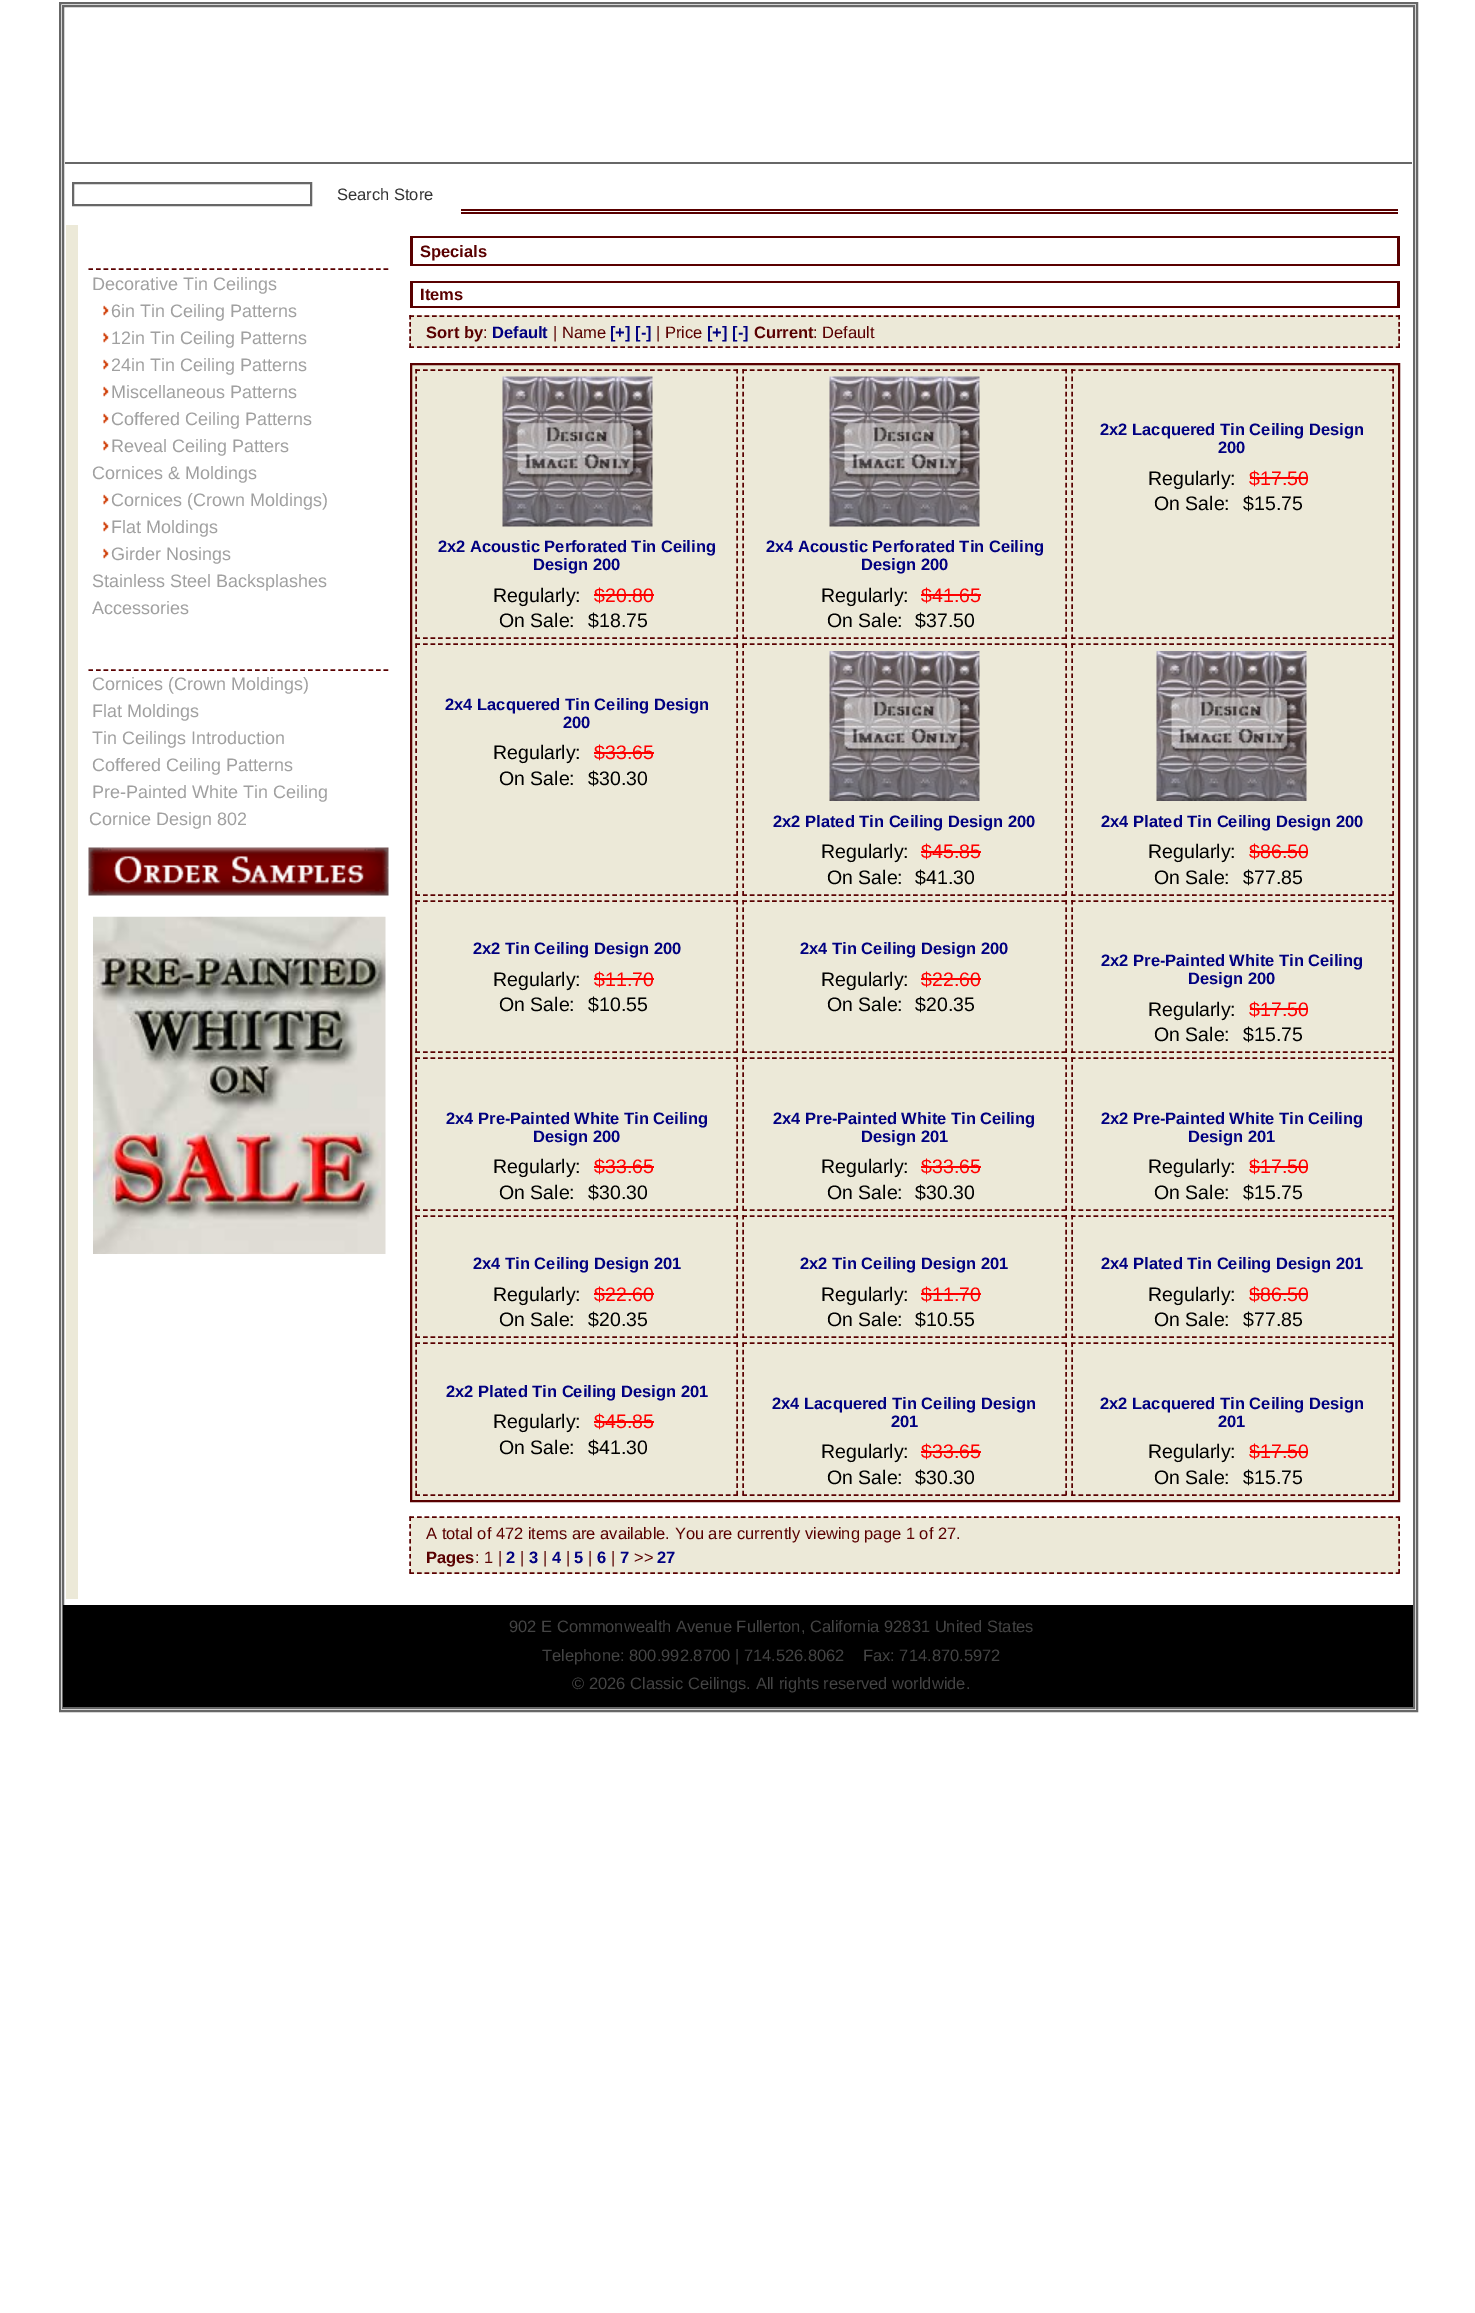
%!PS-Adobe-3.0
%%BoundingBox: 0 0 1475 2313
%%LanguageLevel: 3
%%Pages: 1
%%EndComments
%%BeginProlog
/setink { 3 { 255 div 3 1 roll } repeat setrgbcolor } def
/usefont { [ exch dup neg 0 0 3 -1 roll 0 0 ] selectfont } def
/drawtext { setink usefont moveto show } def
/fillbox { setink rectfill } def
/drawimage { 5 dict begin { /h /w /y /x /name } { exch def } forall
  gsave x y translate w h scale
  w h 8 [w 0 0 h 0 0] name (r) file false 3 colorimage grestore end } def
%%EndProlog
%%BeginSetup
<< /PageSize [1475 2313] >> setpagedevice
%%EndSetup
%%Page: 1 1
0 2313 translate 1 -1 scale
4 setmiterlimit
0 0 1475 2313 255 255 255 fillbox
103 103 103 setink
2 setlinewidth
60 3 1357 1708 rectstroke
63 6 1351 1702 rectstroke
65 162 1347 2 103 103 103 fillbox
73 183 238 22 rectstroke
(Search Store) 337 200 /LiberationSans-Regular 16.5 51 51 51 drawtext
461 209 937 2 89 0 0 fillbox
461 212 937 2 89 0 0 fillbox
66 225 12 1374 236 233 216 fillbox
89 0 0 setink
1.5 setlinewidth
[4.5 3.07] 0 setdash
88.5 269 moveto 388.5 269 lineto stroke
(Decorative Tin Ceilings) 92 290 /LiberationSans-Regular 18 160 160 160 drawtext
(assets/img1.rgb) 103 305 6 11 drawimage
(6in Tin Ceiling Patterns) 111 317 /LiberationSans-Regular 18 160 160 160 drawtext
(assets/img1.rgb) 103 332 6 11 drawimage
(12in Tin Ceiling Patterns) 111 344 /LiberationSans-Regular 18 160 160 160 drawtext
(assets/img1.rgb) 103 359 6 11 drawimage
(24in Tin Ceiling Patterns) 111 371 /LiberationSans-Regular 18 160 160 160 drawtext
(assets/img1.rgb) 103 386 6 11 drawimage
(Miscellaneous Patterns) 111 398 /LiberationSans-Regular 18 160 160 160 drawtext
(assets/img1.rgb) 103 413 6 11 drawimage
(Coffered Ceiling Patterns) 111 425 /LiberationSans-Regular 18 160 160 160 drawtext
(assets/img1.rgb) 103 440 6 11 drawimage
(Reveal Ceiling Patters) 111 452 /LiberationSans-Regular 18 160 160 160 drawtext
(Cornices & Moldings) 92 479 /LiberationSans-Regular 18 160 160 160 drawtext
(assets/img1.rgb) 103 494 6 11 drawimage
(Cornices \(Crown Moldings\)) 111 506 /LiberationSans-Regular 18 160 160 160 drawtext
(assets/img1.rgb) 103 521 6 11 drawimage
(Flat Moldings) 111 533 /LiberationSans-Regular 18 160 160 160 drawtext
(assets/img1.rgb) 103 548 6 11 drawimage
(Girder Nosings) 111 560 /LiberationSans-Regular 18 160 160 160 drawtext
(Stainless Steel Backsplashes) 92 587 /LiberationSans-Regular 18 160 160 160 drawtext
(Accessories) 92 614 /LiberationSans-Regular 18 160 160 160 drawtext
89 0 0 setink
88.5 670 moveto 388.5 670 lineto stroke
(Cornices \(Crown Moldings\)) 92 690 /LiberationSans-Regular 18 160 160 160 drawtext
(Flat Moldings) 92 717 /LiberationSans-Regular 18 160 160 160 drawtext
(Tin Ceilings Introduction) 92 744 /LiberationSans-Regular 18 160 160 160 drawtext
(Coffered Ceiling Patterns) 92 771 /LiberationSans-Regular 18 160 160 160 drawtext
(Pre-Painted White Tin Ceiling) 92 798 /LiberationSans-Regular 18 160 160 160 drawtext
(Cornice Design 802) 89 825 /LiberationSans-Regular 18 160 160 160 drawtext
(assets/img2.rgb) 88 847 301 49 drawimage
(assets/img3.rgb) 93 916 293 338 drawimage
410 236 990 2 89 0 0 fillbox
1397 236 3 30 89 0 0 fillbox
410 264 990 2 89 0 0 fillbox
410 236 3 30 89 0 0 fillbox
(Specials) 420 257 /LiberationSans-Bold 16.5 89 0 0 drawtext
410 281 990 2 89 0 0 fillbox
1397 281 3 27 89 0 0 fillbox
410 306 990 2 89 0 0 fillbox
410 281 3 27 89 0 0 fillbox
(Items) 420 300 /LiberationSans-Bold 16.5 89 0 0 drawtext
410 315 990 33 236 233 216 fillbox
89 0 0 setink
[4.5 3.03] 0 setdash
409.5 316 moveto 1399.5 316 lineto stroke
[4.5 2.62] 0 setdash
1399 315 moveto 1399 348 lineto stroke
[4.5 3.03] 0 setdash
409.5 347 moveto 1399.5 347 lineto stroke
[4.5 2.62] 0 setdash
410 315 moveto 410 348 lineto stroke
(Sort by) 426 338 /LiberationSans-Bold 16.5 89 0 0 drawtext
(:) 483 338 /LiberationSans-Regular 16.5 89 0 0 drawtext
(Default) 492 338 /LiberationSans-Bold 16.5 0 0 128 drawtext
(| Name) 553 338 /LiberationSans-Regular 16.5 89 0 0 drawtext
([+] [-]) 610 338 /LiberationSans-Bold 16.5 0 0 128 drawtext
(| Price) 656 338 /LiberationSans-Regular 16.5 89 0 0 drawtext
([+] [-]) 707 338 /LiberationSans-Bold 16.5 0 0 128 drawtext
(Current) 754 338 /LiberationSans-Bold 16.5 89 0 0 drawtext
(: Default) 813 338 /LiberationSans-Regular 16.5 89 0 0 drawtext
236 233 216 setink
411 364 moveto 1399 364 lineto 1399 1501 lineto 411 1501 lineto closepath gsave fill grestore
89 0 0 setink
2 setlinewidth
[] 0 setdash
stroke
1.5 setlinewidth
[4.5 3.07] 0 setdash
1071 370 moveto 1393.5 370 lineto stroke
[4.5 3.09] 0 setdash
1393 369 moveto 1393 639 lineto stroke
[4.5 3.07] 0 setdash
1071 638 moveto 1393.5 638 lineto stroke
[4.5 3.09] 0 setdash
1072 369 moveto 1072 639 lineto stroke
(2x2 Lacquered Tin Ceiling Design) 1100 435 /LiberationSans-Bold 16.5 0 0 128 drawtext
(200) 1218 453 /LiberationSans-Bold 16.5 0 0 128 drawtext
(Regularly:) 1148 485 /LiberationSans-Regular 19.5 0 0 0 drawtext
($17.50) 1249 485 /LiberationSans-Regular 19.5 255 0 0 drawtext
1250 477 58 2 255 0 0 fillbox
(On Sale:) 1154 510 /LiberationSans-Regular 19.5 0 0 0 drawtext
($15.75) 1243 510 /LiberationSans-Regular 19.5 0 0 0 drawtext
89 0 0 setink
[4.5 3.07] 0 setdash
415.5 370 moveto 738 370 lineto stroke
[4.5 3.09] 0 setdash
737 369 moveto 737 639 lineto stroke
[4.5 3.07] 0 setdash
415.5 638 moveto 738 638 lineto stroke
[4.5 3.09] 0 setdash
416 369 moveto 416 639 lineto stroke
(assets/img4.rgb) 502 376 151 151 drawimage
(2x2 Acoustic Perforated Tin Ceiling) 438 552 /LiberationSans-Bold 16.5 0 0 128 drawtext
(Design 200) 533 570 /LiberationSans-Bold 16.5 0 0 128 drawtext
(Regularly:) 493 602 /LiberationSans-Regular 19.5 0 0 0 drawtext
($20.80) 594 602 /LiberationSans-Regular 19.5 255 0 0 drawtext
594 594 60 2 255 0 0 fillbox
(On Sale:) 499 627 /LiberationSans-Regular 19.5 0 0 0 drawtext
($18.75) 588 627 /LiberationSans-Regular 19.5 0 0 0 drawtext
89 0 0 setink
[4.5 2.92] 0 setdash
742.5 370 moveto 1066.5 370 lineto stroke
[4.5 3.09] 0 setdash
1066 369 moveto 1066 639 lineto stroke
[4.5 2.92] 0 setdash
742.5 638 moveto 1066.5 638 lineto stroke
[4.5 3.09] 0 setdash
743 369 moveto 743 639 lineto stroke
(assets/img5.rgb) 829 376 151 151 drawimage
(2x4 Acoustic Perforated Tin Ceiling) 766 552 /LiberationSans-Bold 16.5 0 0 128 drawtext
(Design 200) 861 570 /LiberationSans-Bold 16.5 0 0 128 drawtext
(Regularly:) 821 602 /LiberationSans-Regular 19.5 0 0 0 drawtext
($41.65) 921 602 /LiberationSans-Regular 19.5 255 0 0 drawtext
921 594 60 2 255 0 0 fillbox
(On Sale:) 827 627 /LiberationSans-Regular 19.5 0 0 0 drawtext
($37.50) 915 627 /LiberationSans-Regular 19.5 0 0 0 drawtext
89 0 0 setink
[4.5 3.07] 0 setdash
415.5 644 moveto 738 644 lineto stroke
[4.5 3] 0 setdash
737 643.5 moveto 737 895.5 lineto stroke
[4.5 3.07] 0 setdash
415.5 895 moveto 738 895 lineto stroke
[4.5 3] 0 setdash
416 643.5 moveto 416 895.5 lineto stroke
(2x4 Lacquered Tin Ceiling Design) 445 710 /LiberationSans-Bold 16.5 0 0 128 drawtext
(200) 563 728 /LiberationSans-Bold 16.5 0 0 128 drawtext
(Regularly:) 493 759 /LiberationSans-Regular 19.5 0 0 0 drawtext
($33.65) 594 759 /LiberationSans-Regular 19.5 255 0 0 drawtext
594 752 60 2 255 0 0 fillbox
(On Sale:) 499 785 /LiberationSans-Regular 19.5 0 0 0 drawtext
($30.30) 588 785 /LiberationSans-Regular 19.5 0 0 0 drawtext
89 0 0 setink
[4.5 2.92] 0 setdash
742.5 644 moveto 1066.5 644 lineto stroke
[4.5 3] 0 setdash
1066 643.5 moveto 1066 895.5 lineto stroke
[4.5 2.92] 0 setdash
742.5 895 moveto 1066.5 895 lineto stroke
[4.5 3] 0 setdash
743 643.5 moveto 743 895.5 lineto stroke
(assets/img6.rgb) 829 651 151 150 drawimage
(2x2 Plated Tin Ceiling Design 200) 773 827 /LiberationSans-Bold 16.5 0 0 128 drawtext
(Regularly:) 821 858 /LiberationSans-Regular 19.5 0 0 0 drawtext
($45.85) 921 858 /LiberationSans-Regular 19.5 255 0 0 drawtext
921 851 60 2 255 0 0 fillbox
(On Sale:) 827 884 /LiberationSans-Regular 19.5 0 0 0 drawtext
($41.30) 915 884 /LiberationSans-Regular 19.5 0 0 0 drawtext
89 0 0 setink
[4.5 3.07] 0 setdash
1071 644 moveto 1393.5 644 lineto stroke
[4.5 3] 0 setdash
1393 643.5 moveto 1393 895.5 lineto stroke
[4.5 3.07] 0 setdash
1071 895 moveto 1393.5 895 lineto stroke
[4.5 3] 0 setdash
1072 643.5 moveto 1072 895.5 lineto stroke
(assets/img7.rgb) 1156 651 151 150 drawimage
(2x4 Plated Tin Ceiling Design 200) 1101 827 /LiberationSans-Bold 16.5 0 0 128 drawtext
(Regularly:) 1148 858 /LiberationSans-Regular 19.5 0 0 0 drawtext
($86.50) 1249 858 /LiberationSans-Regular 19.5 255 0 0 drawtext
1250 851 58 2 255 0 0 fillbox
(On Sale:) 1154 884 /LiberationSans-Regular 19.5 0 0 0 drawtext
($77.85) 1243 884 /LiberationSans-Regular 19.5 0 0 0 drawtext
89 0 0 setink
[4.5 3.07] 0 setdash
415.5 901 moveto 738 901 lineto stroke
[4.5 2.92] 0 setdash
737 900 moveto 737 1053 lineto stroke
[4.5 3.07] 0 setdash
415.5 1052 moveto 738 1052 lineto stroke
[4.5 2.92] 0 setdash
416 900 moveto 416 1053 lineto stroke
(2x2 Tin Ceiling Design 200) 473 954 /LiberationSans-Bold 16.5 0 0 128 drawtext
(Regularly:) 493 986 /LiberationSans-Regular 19.5 0 0 0 drawtext
($11.70) 594 986 /LiberationSans-Regular 19.5 255 0 0 drawtext
594 978 60 2 255 0 0 fillbox
(On Sale:) 499 1011 /LiberationSans-Regular 19.5 0 0 0 drawtext
($10.55) 588 1011 /LiberationSans-Regular 19.5 0 0 0 drawtext
89 0 0 setink
742.5 901 moveto 1066.5 901 lineto stroke
1066 900 moveto 1066 1053 lineto stroke
742.5 1052 moveto 1066.5 1052 lineto stroke
743 900 moveto 743 1053 lineto stroke
(2x4 Tin Ceiling Design 200) 800 954 /LiberationSans-Bold 16.5 0 0 128 drawtext
(Regularly:) 821 986 /LiberationSans-Regular 19.5 0 0 0 drawtext
($22.60) 921 986 /LiberationSans-Regular 19.5 255 0 0 drawtext
921 978 60 2 255 0 0 fillbox
(On Sale:) 827 1011 /LiberationSans-Regular 19.5 0 0 0 drawtext
($20.35) 915 1011 /LiberationSans-Regular 19.5 0 0 0 drawtext
89 0 0 setink
[4.5 3.07] 0 setdash
1071 901 moveto 1393.5 901 lineto stroke
[4.5 2.92] 0 setdash
1393 900 moveto 1393 1053 lineto stroke
[4.5 3.07] 0 setdash
1071 1052 moveto 1393.5 1052 lineto stroke
[4.5 2.92] 0 setdash
1072 900 moveto 1072 1053 lineto stroke
(2x2 Pre-Painted White Tin Ceiling) 1101 966 /LiberationSans-Bold 16.5 0 0 128 drawtext
(Design 200) 1188 984 /LiberationSans-Bold 16.5 0 0 128 drawtext
(Regularly:) 1148 1016 /LiberationSans-Regular 19.5 0 0 0 drawtext
($17.50) 1249 1016 /LiberationSans-Regular 19.5 255 0 0 drawtext
1250 1008 58 2 255 0 0 fillbox
(On Sale:) 1154 1041 /LiberationSans-Regular 19.5 0 0 0 drawtext
($15.75) 1243 1041 /LiberationSans-Regular 19.5 0 0 0 drawtext
89 0 0 setink
[4.5 3.07] 0 setdash
415.5 1058 moveto 738 1058 lineto stroke
[4.5 2.92] 0 setdash
737 1057.5 moveto 737 1210.5 lineto stroke
[4.5 3.07] 0 setdash
415.5 1210 moveto 738 1210 lineto stroke
[4.5 2.92] 0 setdash
416 1057.5 moveto 416 1210.5 lineto stroke
(2x4 Pre-Painted White Tin Ceiling) 446 1124 /LiberationSans-Bold 16.5 0 0 128 drawtext
(Design 200) 533 1142 /LiberationSans-Bold 16.5 0 0 128 drawtext
(Regularly:) 493 1173 /LiberationSans-Regular 19.5 0 0 0 drawtext
($33.65) 594 1173 /LiberationSans-Regular 19.5 255 0 0 drawtext
594 1166 60 2 255 0 0 fillbox
(On Sale:) 499 1199 /LiberationSans-Regular 19.5 0 0 0 drawtext
($30.30) 588 1199 /LiberationSans-Regular 19.5 0 0 0 drawtext
89 0 0 setink
742.5 1058 moveto 1066.5 1058 lineto stroke
1066 1057.5 moveto 1066 1210.5 lineto stroke
742.5 1210 moveto 1066.5 1210 lineto stroke
743 1057.5 moveto 743 1210.5 lineto stroke
(2x4 Pre-Painted White Tin Ceiling) 773 1124 /LiberationSans-Bold 16.5 0 0 128 drawtext
(Design 201) 861 1142 /LiberationSans-Bold 16.5 0 0 128 drawtext
(Regularly:) 821 1173 /LiberationSans-Regular 19.5 0 0 0 drawtext
($33.65) 921 1173 /LiberationSans-Regular 19.5 255 0 0 drawtext
921 1166 60 2 255 0 0 fillbox
(On Sale:) 827 1199 /LiberationSans-Regular 19.5 0 0 0 drawtext
($30.30) 915 1199 /LiberationSans-Regular 19.5 0 0 0 drawtext
89 0 0 setink
[4.5 3.07] 0 setdash
1071 1058 moveto 1393.5 1058 lineto stroke
[4.5 2.92] 0 setdash
1393 1057.5 moveto 1393 1210.5 lineto stroke
[4.5 3.07] 0 setdash
1071 1210 moveto 1393.5 1210 lineto stroke
[4.5 2.92] 0 setdash
1072 1057.5 moveto 1072 1210.5 lineto stroke
(2x2 Pre-Painted White Tin Ceiling) 1101 1124 /LiberationSans-Bold 16.5 0 0 128 drawtext
(Design 201) 1188 1142 /LiberationSans-Bold 16.5 0 0 128 drawtext
(Regularly:) 1148 1173 /LiberationSans-Regular 19.5 0 0 0 drawtext
($17.50) 1249 1173 /LiberationSans-Regular 19.5 255 0 0 drawtext
1250 1166 58 2 255 0 0 fillbox
(On Sale:) 1154 1199 /LiberationSans-Regular 19.5 0 0 0 drawtext
($15.75) 1243 1199 /LiberationSans-Regular 19.5 0 0 0 drawtext
89 0 0 setink
[4.5 3.07] 0 setdash
415.5 1216 moveto 738 1216 lineto stroke
[4.5 2.91] 0 setdash
737 1215 moveto 737 1338 lineto stroke
[4.5 3.07] 0 setdash
415.5 1337 moveto 738 1337 lineto stroke
[4.5 2.91] 0 setdash
416 1215 moveto 416 1338 lineto stroke
(2x4 Tin Ceiling Design 201) 473 1269 /LiberationSans-Bold 16.5 0 0 128 drawtext
(Regularly:) 493 1301 /LiberationSans-Regular 19.5 0 0 0 drawtext
($22.60) 594 1301 /LiberationSans-Regular 19.5 255 0 0 drawtext
594 1293 60 2 255 0 0 fillbox
(On Sale:) 499 1326 /LiberationSans-Regular 19.5 0 0 0 drawtext
($20.35) 588 1326 /LiberationSans-Regular 19.5 0 0 0 drawtext
89 0 0 setink
[4.5 2.92] 0 setdash
742.5 1216 moveto 1066.5 1216 lineto stroke
[4.5 2.91] 0 setdash
1066 1215 moveto 1066 1338 lineto stroke
[4.5 2.92] 0 setdash
742.5 1337 moveto 1066.5 1337 lineto stroke
[4.5 2.91] 0 setdash
743 1215 moveto 743 1338 lineto stroke
(2x2 Tin Ceiling Design 201) 800 1269 /LiberationSans-Bold 16.5 0 0 128 drawtext
(Regularly:) 821 1301 /LiberationSans-Regular 19.5 0 0 0 drawtext
($11.70) 921 1301 /LiberationSans-Regular 19.5 255 0 0 drawtext
921 1293 60 2 255 0 0 fillbox
(On Sale:) 827 1326 /LiberationSans-Regular 19.5 0 0 0 drawtext
($10.55) 915 1326 /LiberationSans-Regular 19.5 0 0 0 drawtext
89 0 0 setink
[4.5 3.07] 0 setdash
1071 1216 moveto 1393.5 1216 lineto stroke
[4.5 2.91] 0 setdash
1393 1215 moveto 1393 1338 lineto stroke
[4.5 3.07] 0 setdash
1071 1337 moveto 1393.5 1337 lineto stroke
[4.5 2.91] 0 setdash
1072 1215 moveto 1072 1338 lineto stroke
(2x4 Plated Tin Ceiling Design 201) 1101 1269 /LiberationSans-Bold 16.5 0 0 128 drawtext
(Regularly:) 1148 1301 /LiberationSans-Regular 19.5 0 0 0 drawtext
($86.50) 1249 1301 /LiberationSans-Regular 19.5 255 0 0 drawtext
1250 1293 58 2 255 0 0 fillbox
(On Sale:) 1154 1326 /LiberationSans-Regular 19.5 0 0 0 drawtext
($77.85) 1243 1326 /LiberationSans-Regular 19.5 0 0 0 drawtext
89 0 0 setink
[4.5 3.07] 0 setdash
415.5 1343 moveto 738 1343 lineto stroke
[4.5 2.92] 0 setdash
737 1342.5 moveto 737 1495.5 lineto stroke
[4.5 3.07] 0 setdash
415.5 1495 moveto 738 1495 lineto stroke
[4.5 2.92] 0 setdash
416 1342.5 moveto 416 1495.5 lineto stroke
(2x2 Plated Tin Ceiling Design 201) 446 1397 /LiberationSans-Bold 16.5 0 0 128 drawtext
(Regularly:) 493 1428 /LiberationSans-Regular 19.5 0 0 0 drawtext
($45.85) 594 1428 /LiberationSans-Regular 19.5 255 0 0 drawtext
594 1421 60 2 255 0 0 fillbox
(On Sale:) 499 1454 /LiberationSans-Regular 19.5 0 0 0 drawtext
($41.30) 588 1454 /LiberationSans-Regular 19.5 0 0 0 drawtext
89 0 0 setink
742.5 1343 moveto 1066.5 1343 lineto stroke
1066 1342.5 moveto 1066 1495.5 lineto stroke
742.5 1495 moveto 1066.5 1495 lineto stroke
743 1342.5 moveto 743 1495.5 lineto stroke
(2x4 Lacquered Tin Ceiling Design) 772 1409 /LiberationSans-Bold 16.5 0 0 128 drawtext
(201) 891 1427 /LiberationSans-Bold 16.5 0 0 128 drawtext
(Regularly:) 821 1458 /LiberationSans-Regular 19.5 0 0 0 drawtext
($33.65) 921 1458 /LiberationSans-Regular 19.5 255 0 0 drawtext
921 1451 60 2 255 0 0 fillbox
(On Sale:) 827 1484 /LiberationSans-Regular 19.5 0 0 0 drawtext
($30.30) 915 1484 /LiberationSans-Regular 19.5 0 0 0 drawtext
89 0 0 setink
[4.5 3.07] 0 setdash
1071 1343 moveto 1393.5 1343 lineto stroke
[4.5 2.92] 0 setdash
1393 1342.5 moveto 1393 1495.5 lineto stroke
[4.5 3.07] 0 setdash
1071 1495 moveto 1393.5 1495 lineto stroke
[4.5 2.92] 0 setdash
1072 1342.5 moveto 1072 1495.5 lineto stroke
(2x2 Lacquered Tin Ceiling Design) 1100 1409 /LiberationSans-Bold 16.5 0 0 128 drawtext
(201) 1218 1427 /LiberationSans-Bold 16.5 0 0 128 drawtext
(Regularly:) 1148 1458 /LiberationSans-Regular 19.5 0 0 0 drawtext
($17.50) 1249 1458 /LiberationSans-Regular 19.5 255 0 0 drawtext
1250 1451 58 2 255 0 0 fillbox
(On Sale:) 1154 1484 /LiberationSans-Regular 19.5 0 0 0 drawtext
($15.75) 1243 1484 /LiberationSans-Regular 19.5 0 0 0 drawtext
410 1517 990 57 236 233 216 fillbox
89 0 0 setink
[4.5 3.03] 0 setdash
409.5 1517 moveto 1399.5 1517 lineto stroke
[4.5 3] 0 setdash
1399 1516.5 moveto 1399 1573.5 lineto stroke
[4.5 3.03] 0 setdash
409.5 1573 moveto 1399.5 1573 lineto stroke
[4.5 3] 0 setdash
410 1516.5 moveto 410 1573.5 lineto stroke
(A total of 472 items are available. You are currently viewing page 1 of 27.) 426 1539 /LiberationSans-Regular 16.5 89 0 0 drawtext
(Pages) 426 1563 /LiberationSans-Bold 16.5 89 0 0 drawtext
(: 1 |) 475 1563 /LiberationSans-Regular 16.5 89 0 0 drawtext
(2) 506 1563 /LiberationSans-Bold 16.5 0 0 128 drawtext
(|) 520 1563 /LiberationSans-Regular 16.5 89 0 0 drawtext
(3) 529 1563 /LiberationSans-Bold 16.5 0 0 128 drawtext
(|) 543 1563 /LiberationSans-Regular 16.5 89 0 0 drawtext
(4) 552 1563 /LiberationSans-Bold 16.5 0 0 128 drawtext
(|) 566 1563 /LiberationSans-Regular 16.5 89 0 0 drawtext
(5) 574 1563 /LiberationSans-Bold 16.5 0 0 128 drawtext
(|) 588 1563 /LiberationSans-Regular 16.5 89 0 0 drawtext
(6) 597 1563 /LiberationSans-Bold 16.5 0 0 128 drawtext
(|) 611 1563 /LiberationSans-Regular 16.5 89 0 0 drawtext
(7) 620 1563 /LiberationSans-Bold 16.5 0 0 128 drawtext
(>>) 634 1563 /LiberationSans-Regular 16.5 89 0 0 drawtext
(27) 657 1563 /LiberationSans-Bold 16.5 0 0 128 drawtext
63 1605 1350 102 0 0 0 fillbox
(902 E Commonwealth Avenue Fullerton, California 92831 United States) 509 1632 /LiberationSans-Regular 16.5 68 68 68 drawtext
(Telephone: 800.992.8700 | 714.526.8062    Fax: 714.870.5972) 542 1661 /LiberationSans-Regular 16.5 68 68 68 drawtext
(© 2026 Classic Ceilings. All rights reserved worldwide.) 572 1689 /LiberationSans-Regular 16.5 68 68 68 drawtext
showpage
%%EOF
